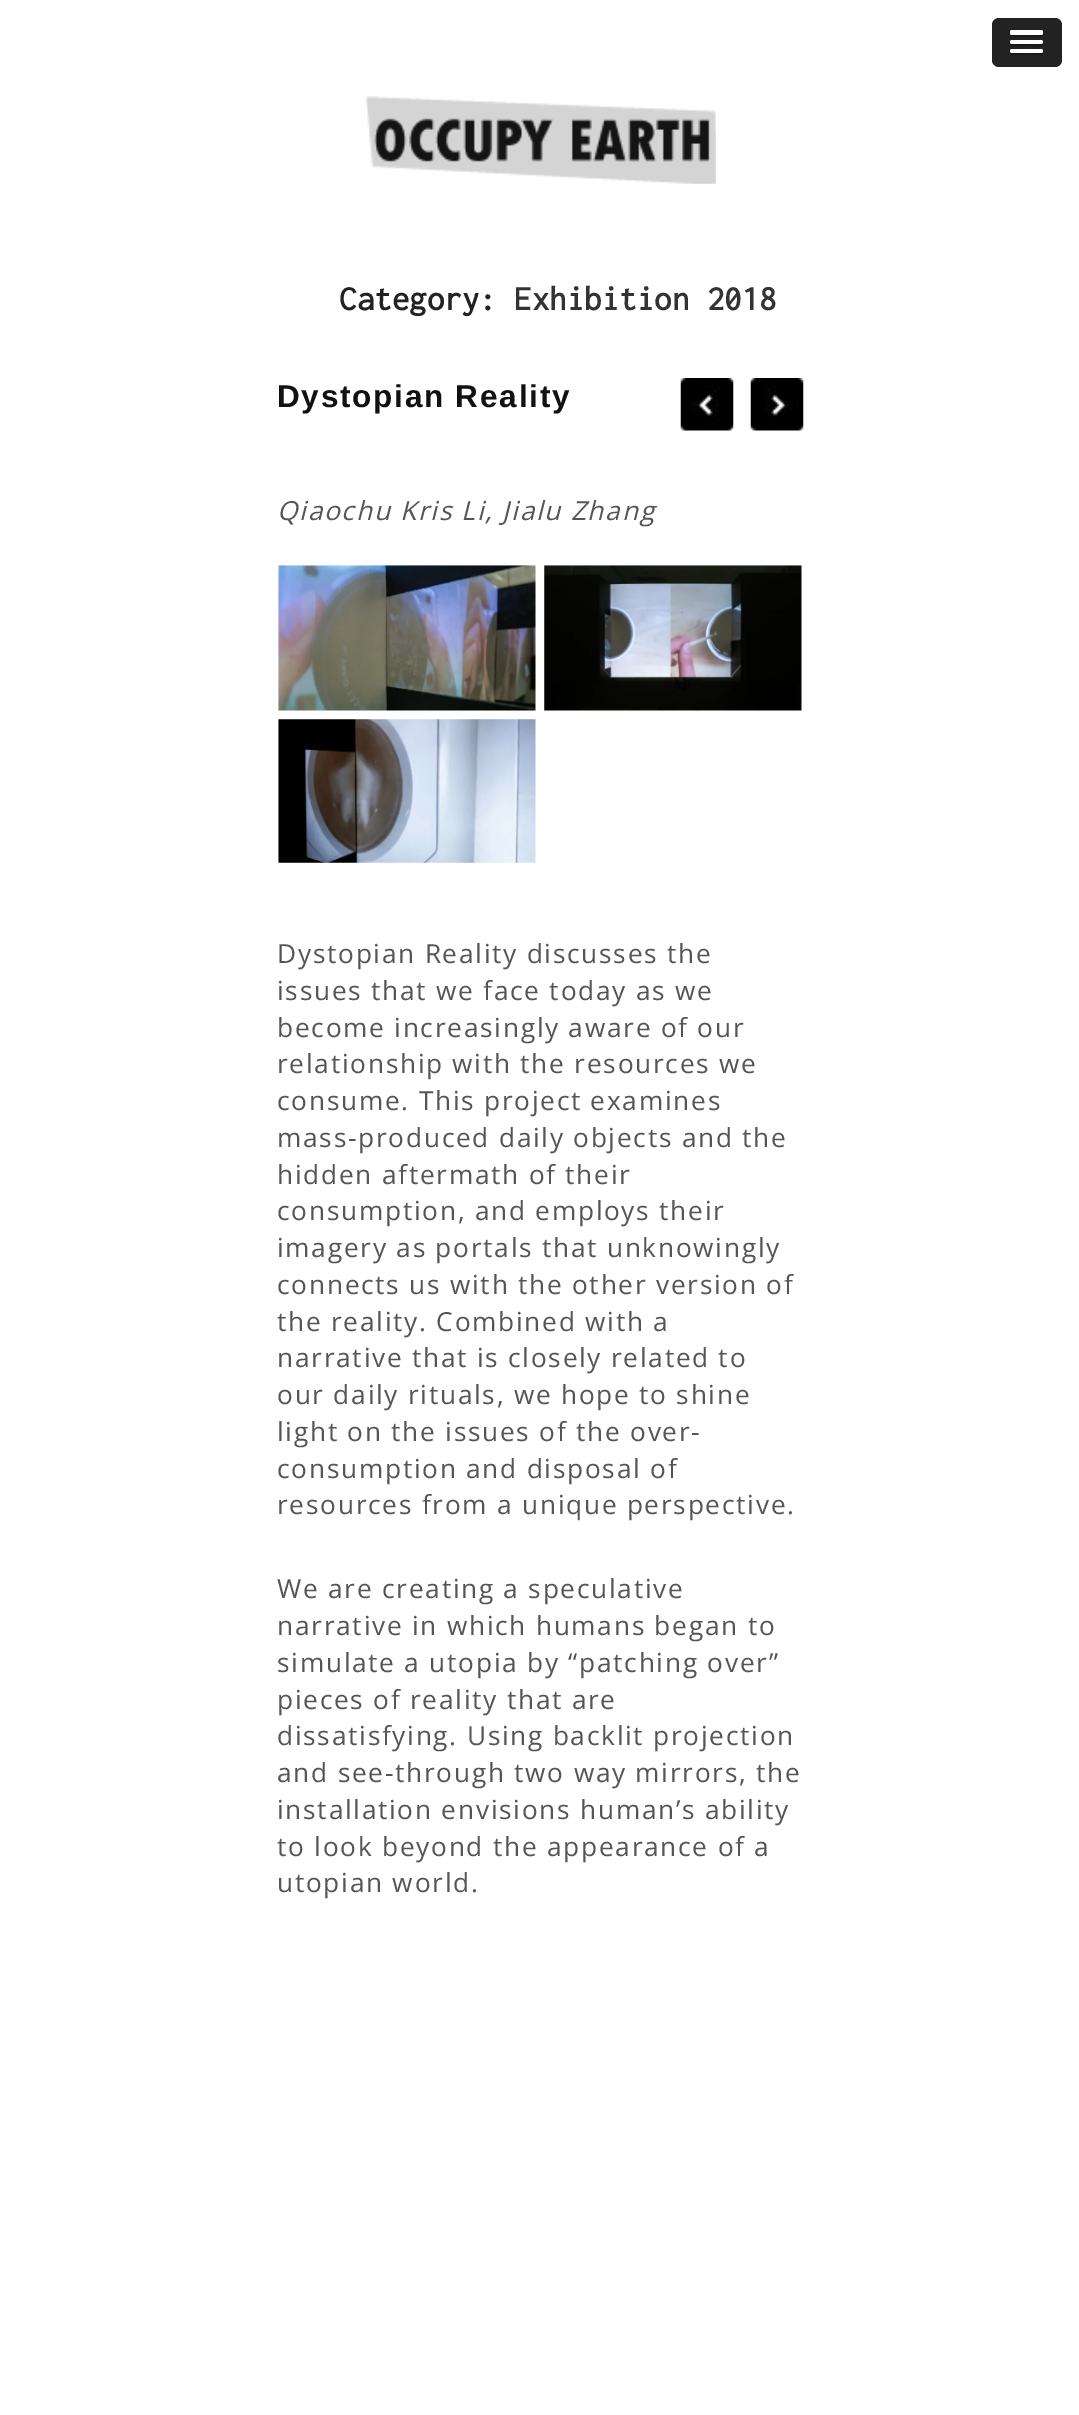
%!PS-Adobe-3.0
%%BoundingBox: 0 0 1079 2415
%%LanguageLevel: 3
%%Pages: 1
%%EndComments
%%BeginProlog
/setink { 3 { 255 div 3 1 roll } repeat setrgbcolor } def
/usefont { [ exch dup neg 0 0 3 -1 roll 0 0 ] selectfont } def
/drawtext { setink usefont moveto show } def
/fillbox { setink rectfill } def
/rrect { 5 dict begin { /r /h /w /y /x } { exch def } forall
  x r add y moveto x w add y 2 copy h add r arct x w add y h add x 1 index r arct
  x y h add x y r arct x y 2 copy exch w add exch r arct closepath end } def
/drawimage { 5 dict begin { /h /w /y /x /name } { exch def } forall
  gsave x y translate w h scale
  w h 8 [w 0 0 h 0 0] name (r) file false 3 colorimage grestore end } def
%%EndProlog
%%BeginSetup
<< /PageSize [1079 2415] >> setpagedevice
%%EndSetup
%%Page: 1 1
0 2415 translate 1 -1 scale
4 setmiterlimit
0 0 1079 2415 255 255 255 fillbox
34 34 34 setink
992 18 70 49 7 rrect fill
26 26 26 setink
1010 34 moveto 1010 38 1013.5 37 1017 37 curveto 1036 37 lineto 1039 37 1044 38 1043 33.5 curveto 1043 34 1042.5 34.5 1042 35 curveto 1011.5 35 lineto closepath fill
255 255 255 setink
1010 30 33 5 2 rrect fill
26 26 26 setink
1010 43 moveto 1008.5 47 1016 46 1017 46 curveto 1036 46 lineto 1036.5 46 1045 47 1042.5 43 curveto 1041.5 43.5 lineto 1011.5 43.5 lineto closepath fill
255 255 255 setink
1010 40 33 4 2 rrect fill
26 26 26 setink
1010.5 52 moveto 1008 56 1016.5 55 1017 55 curveto 1036 55 lineto 1037.5 55 1042.5 56 1043 53.5 curveto 1042.5 52 lineto 1041.5 52.5 lineto 1011.5 52.5 lineto closepath fill
255 255 255 setink
1010 49 33 4 2 rrect fill
(assets/img1.rgb) 365 96 351 88 drawimage
(Category:) 339 310 /Inconsolata-Bold 35 34 34 34 drawtext
(Exhibition 2018) 514 310 /Inconsolata-Bold 35 51 51 51 drawtext
/LiberationSans-Bold 31.5 usefont
17 17 17 setink
277 407 moveto 1.75 0 (Dystopian Reality) ashow
(assets/img2.rgb) 680 378 54 53 drawimage
(assets/img3.rgb) 750 378 54 53 drawimage
/OpenSans-Italic 26.25 usefont
85 85 85 setink
277 520 moveto 1.75 0 (Qiaochu Kris Li, Jialu Zhang) ashow
(assets/img4.rgb) 278 565 258 146 drawimage
(assets/img5.rgb) 544 565 258 146 drawimage
(assets/img6.rgb) 278 719 258 144 drawimage
/OpenSans-Regular 26.25 usefont
277 963 moveto 1.75 0 (Dystopian Reality discusses the) ashow
277 1000 moveto 1.75 0 (issues that we face today as we) ashow
277 1037 moveto 1.75 0 (become increasingly aware of our) ashow
277 1073 moveto 1.75 0 (relationship with the resources we) ashow
277 1110 moveto 1.75 0 (consume. This project examines) ashow
277 1147 moveto 1.75 0 (mass-produced daily objects and the) ashow
277 1184 moveto 1.75 0 (hidden aftermath of their) ashow
277 1220 moveto 1.75 0 (consumption, and employs their) ashow
277 1257 moveto 1.75 0 (imagery as portals that unknowingly) ashow
277 1294 moveto 1.75 0 (connects us with the other version of) ashow
277 1331 moveto 1.75 0 (the reality. Combined with a) ashow
277 1367 moveto 1.75 0 (narrative that is closely related to) ashow
277 1404 moveto 1.75 0 (our daily rituals, we hope to shine) ashow
277 1441 moveto 1.75 0 (light on the issues of the over-) ashow
277 1478 moveto 1.75 0 (consumption and disposal of) ashow
277 1514 moveto 1.75 0 (resources from a unique perspective.) ashow
277 1598 moveto 1.75 0 (We are creating a speculative) ashow
277 1635 moveto 1.75 0 (narrative in which humans began to) ashow
277 1672 moveto 1.75 0 (simulate a utopia by “patching over”) ashow
277 1709 moveto 1.75 0 (pieces of reality that are) ashow
277 1745 moveto 1.75 0 (dissatisfying. Using backlit projection) ashow
277 1782 moveto 1.75 0 (and see-through two way mirrors, the) ashow
277 1819 moveto 1.75 0 (installation envisions human’s ability) ashow
277 1856 moveto 1.75 0 (to look beyond the appearance of a) ashow
277 1892 moveto 1.75 0 (utopian world.) ashow
showpage
%%EOF
